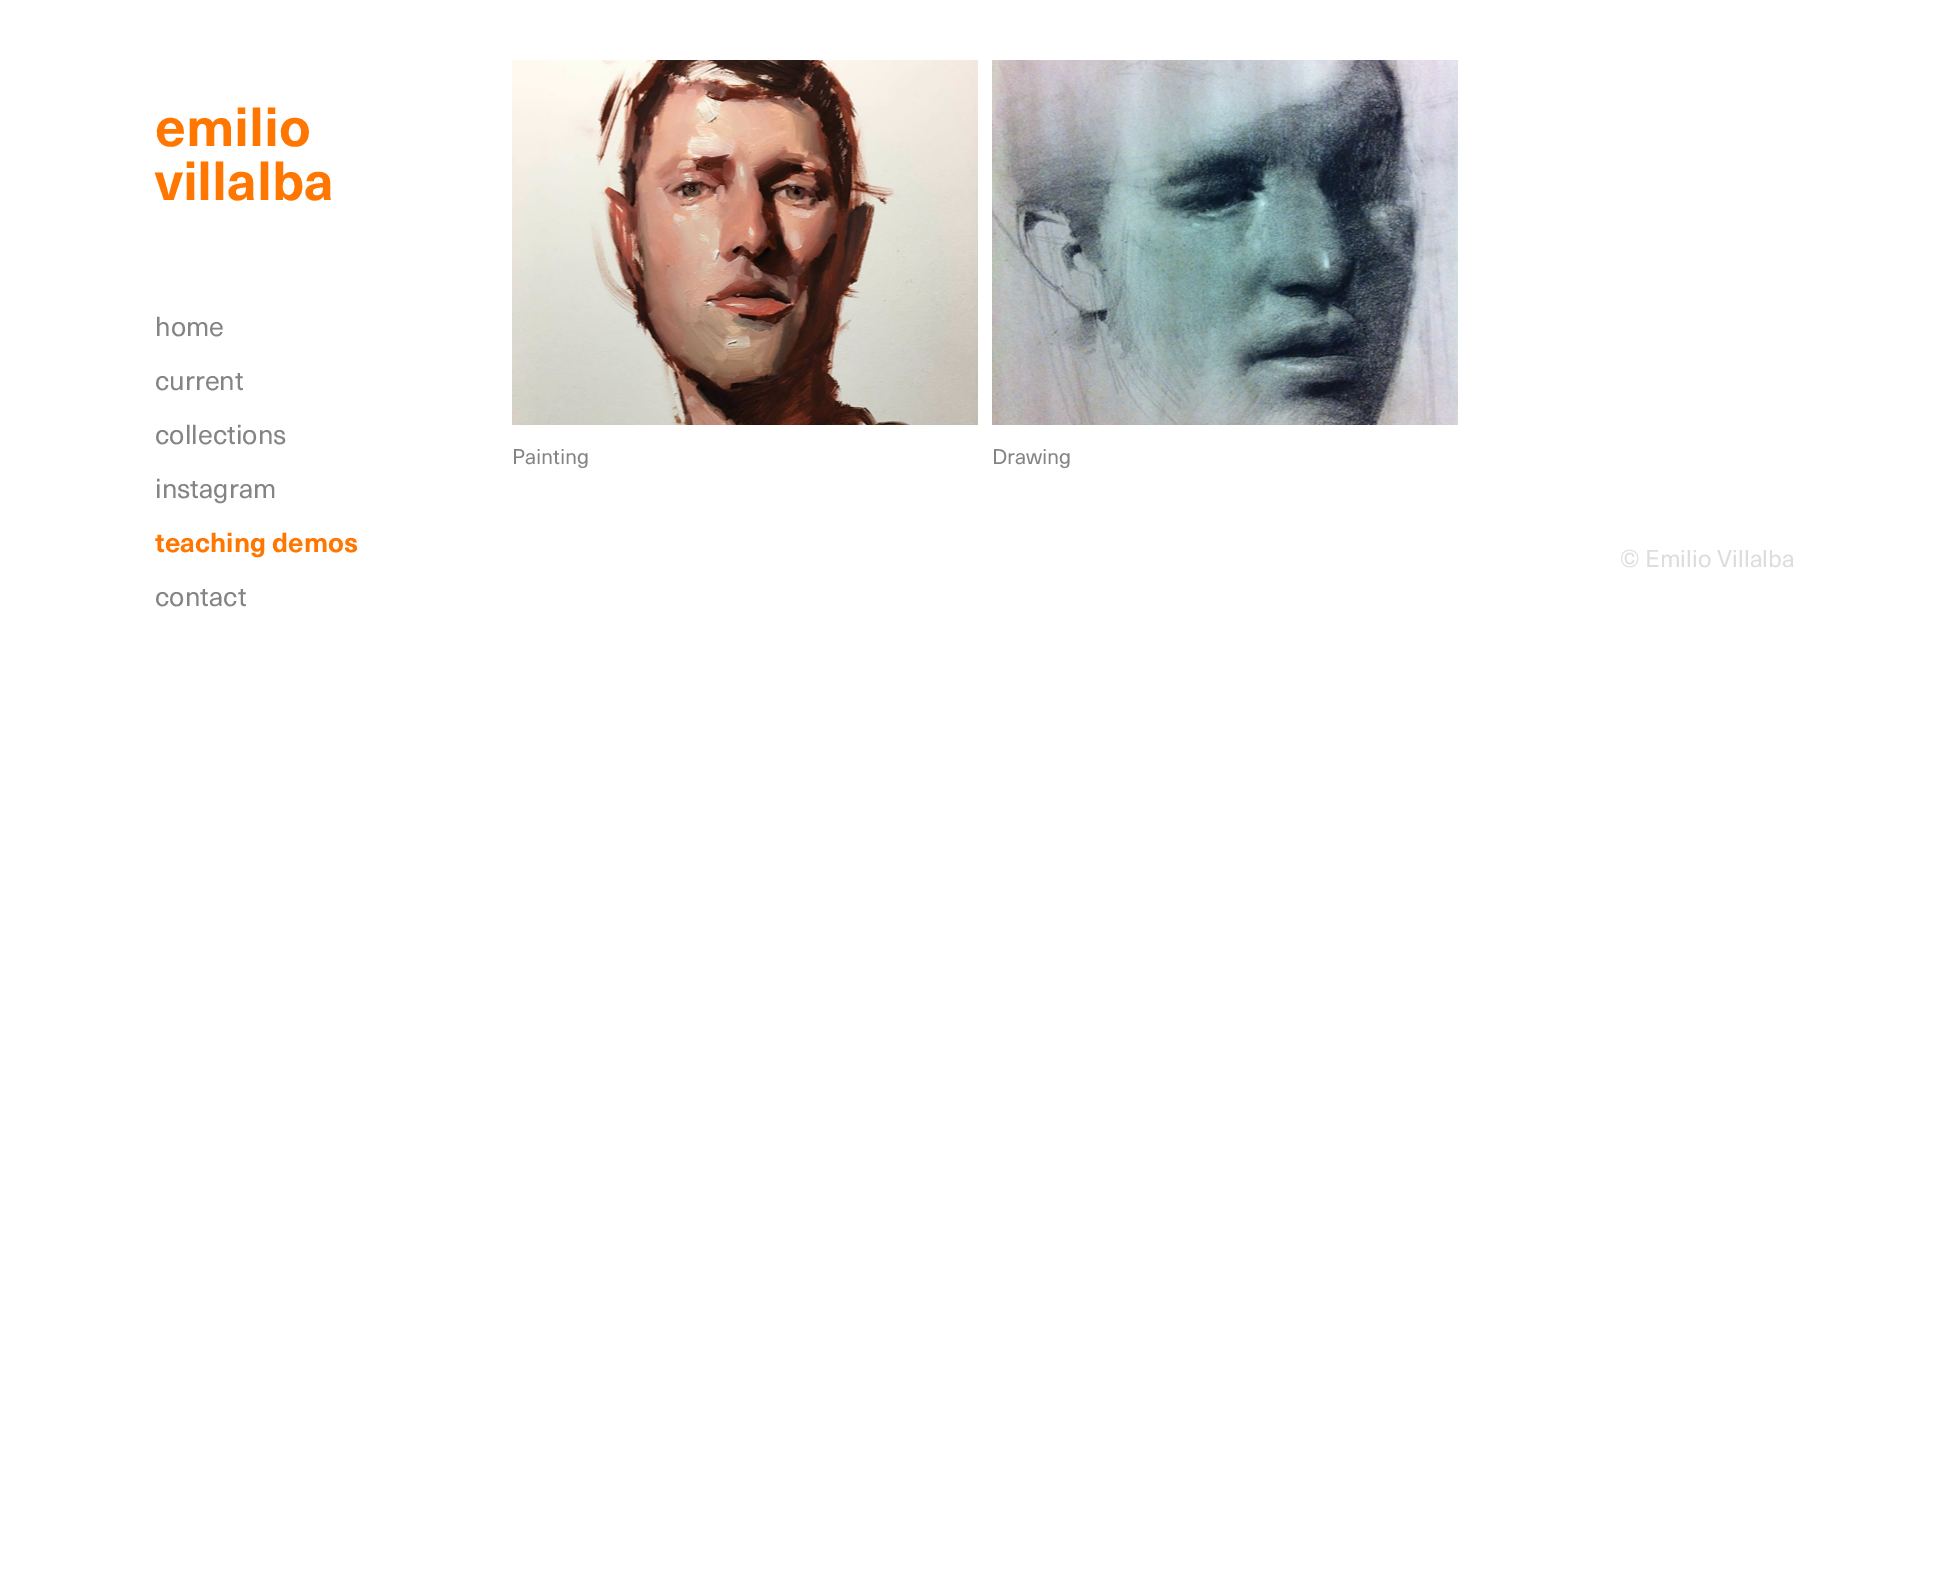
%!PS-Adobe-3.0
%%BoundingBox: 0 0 1937 1570
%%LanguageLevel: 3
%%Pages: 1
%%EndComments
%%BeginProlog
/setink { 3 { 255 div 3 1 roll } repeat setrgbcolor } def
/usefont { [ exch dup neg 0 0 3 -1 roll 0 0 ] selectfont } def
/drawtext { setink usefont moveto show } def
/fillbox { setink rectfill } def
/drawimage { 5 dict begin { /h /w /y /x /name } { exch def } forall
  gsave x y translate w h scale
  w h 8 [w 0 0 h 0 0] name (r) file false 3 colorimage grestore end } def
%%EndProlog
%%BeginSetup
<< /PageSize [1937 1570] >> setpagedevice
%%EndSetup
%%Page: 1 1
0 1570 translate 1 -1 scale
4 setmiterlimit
0 0 1937 1570 255 255 255 fillbox
(emilio) 155 146 /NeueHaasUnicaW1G-Bold 54 255 119 0 drawtext
(villalba) 155 200 /NeueHaasUnicaW1G-Bold 54 255 119 0 drawtext
(home) 155 336 /NeueHaasUnicaW1G-Regular 27 132 132 132 drawtext
(current) 155 390 /NeueHaasUnicaW1G-Regular 27 132 132 132 drawtext
(collections) 155 444 /NeueHaasUnicaW1G-Regular 27 132 132 132 drawtext
(instagram) 155 498 /NeueHaasUnicaW1G-Regular 27 132 132 132 drawtext
(teaching demos) 155 552 /NeueHaasUnicaW1G-Bold 27 255 119 0 drawtext
(contact) 155 606 /NeueHaasUnicaW1G-Regular 27 132 132 132 drawtext
(assets/img1.rgb) 512 60 466 365 drawimage
(Painting) 512 464 /NeueHaasUnicaW1G-Regular 21 132 132 132 drawtext
(assets/img2.rgb) 992 60 466 365 drawimage
(Drawing) 992 464 /NeueHaasUnicaW1G-Regular 21 132 132 132 drawtext
(© Emilio Villalba) 1620 567 /NeueHaasUnicaW1G-Regular 24 221 221 221 drawtext
showpage
%%EOF
